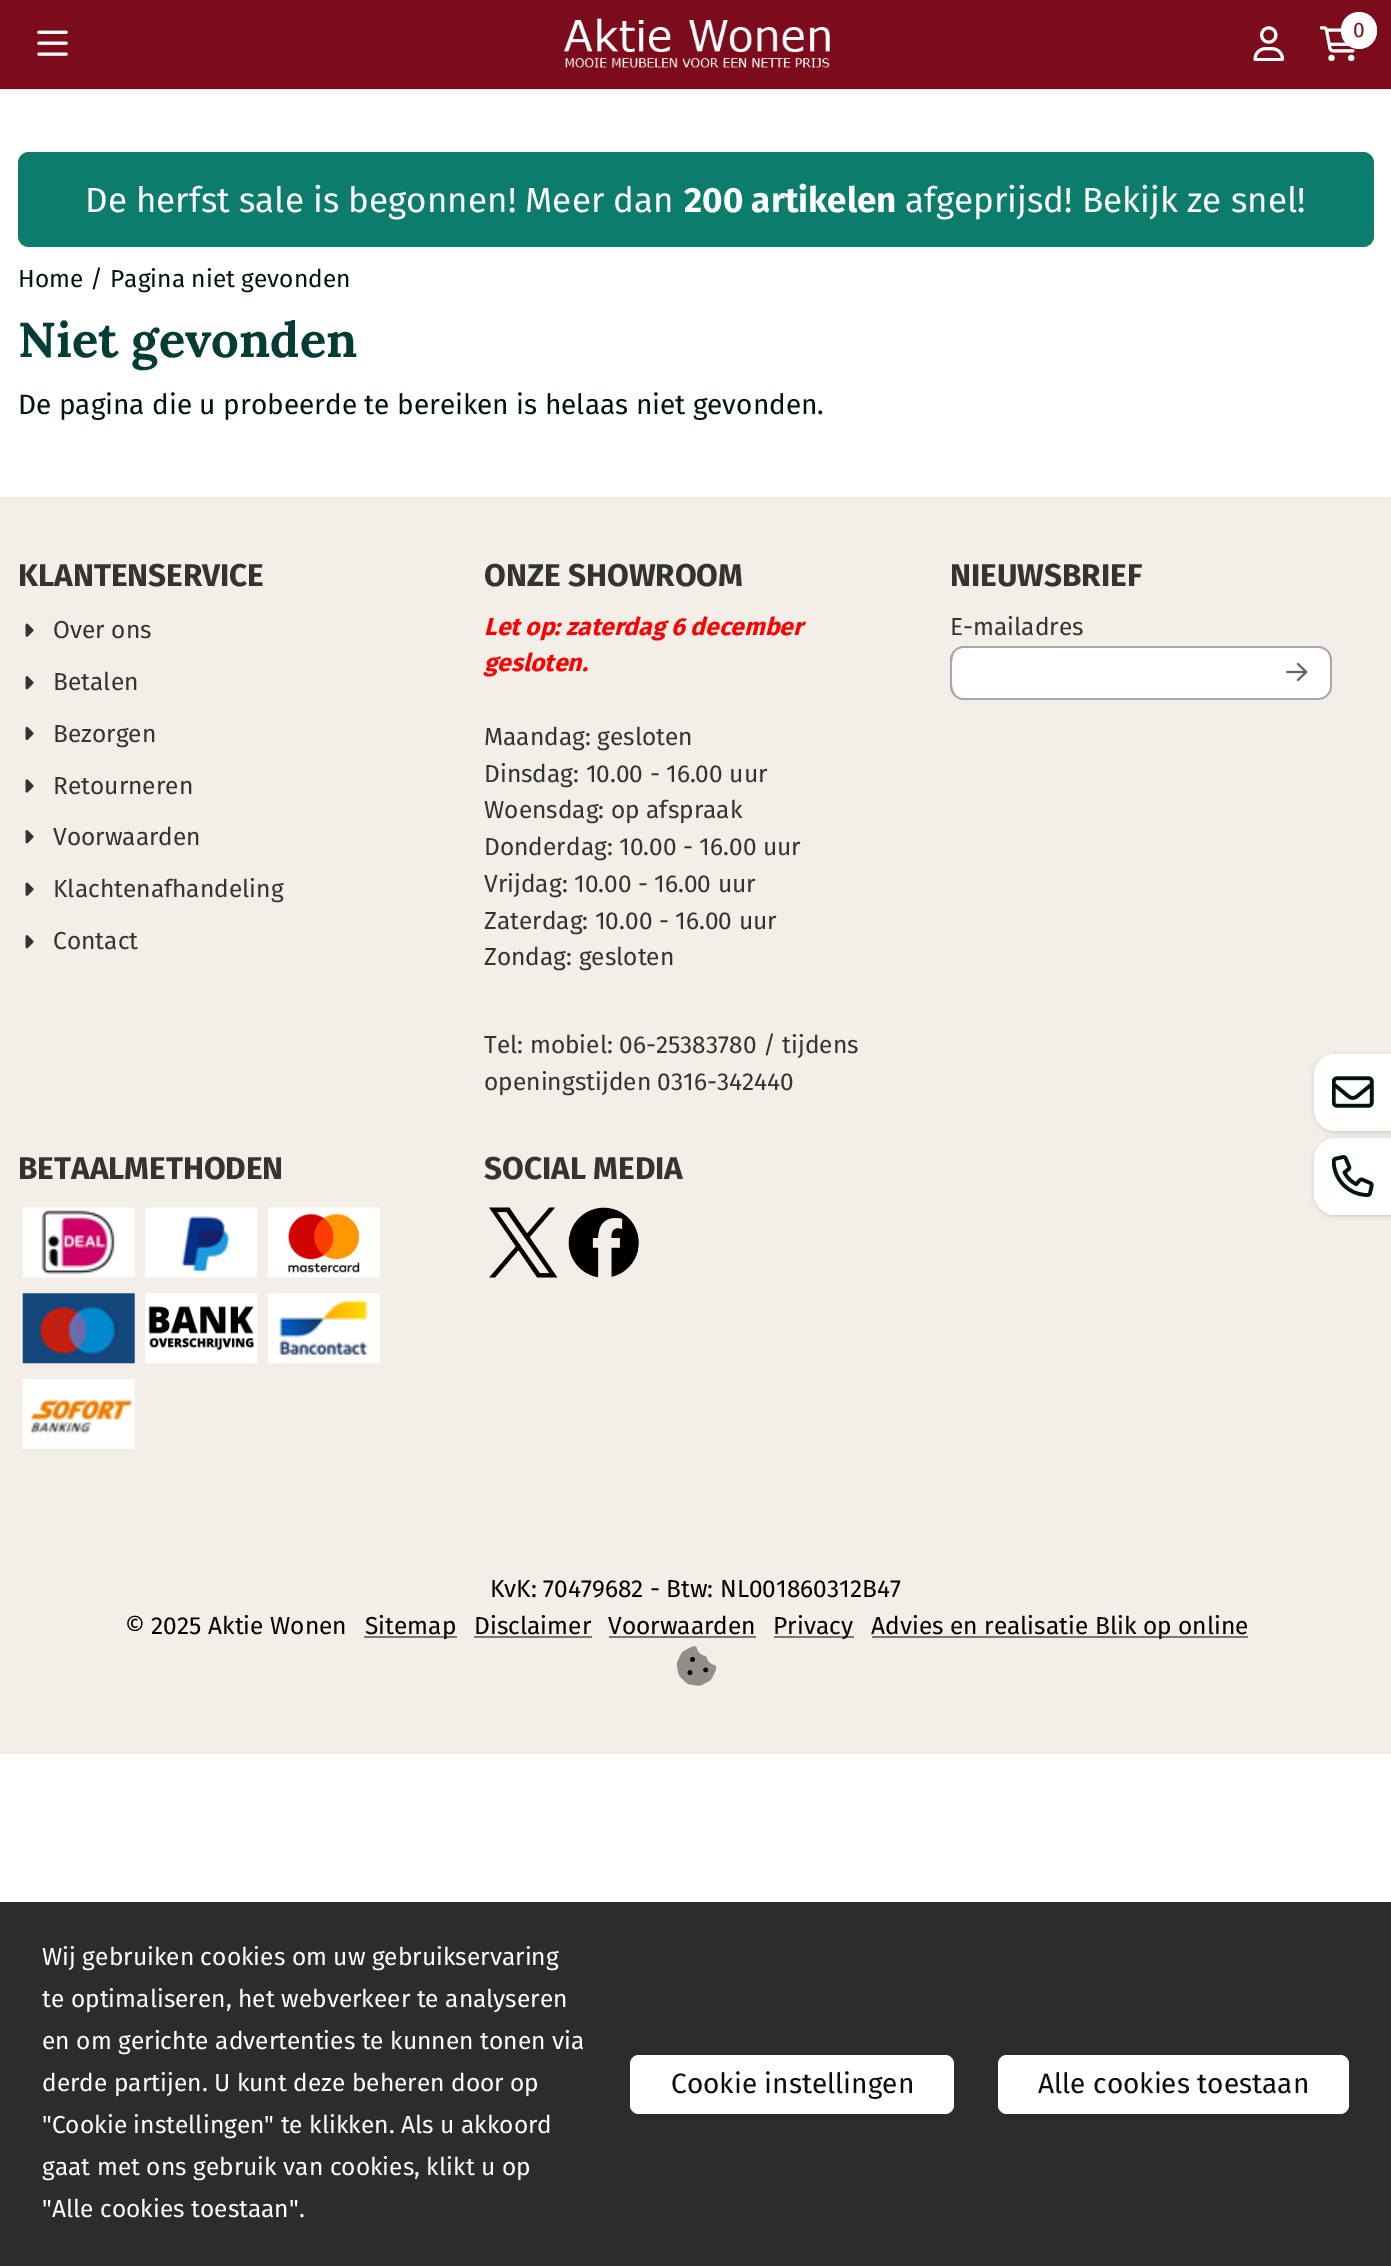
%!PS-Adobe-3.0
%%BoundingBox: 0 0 1391 2266
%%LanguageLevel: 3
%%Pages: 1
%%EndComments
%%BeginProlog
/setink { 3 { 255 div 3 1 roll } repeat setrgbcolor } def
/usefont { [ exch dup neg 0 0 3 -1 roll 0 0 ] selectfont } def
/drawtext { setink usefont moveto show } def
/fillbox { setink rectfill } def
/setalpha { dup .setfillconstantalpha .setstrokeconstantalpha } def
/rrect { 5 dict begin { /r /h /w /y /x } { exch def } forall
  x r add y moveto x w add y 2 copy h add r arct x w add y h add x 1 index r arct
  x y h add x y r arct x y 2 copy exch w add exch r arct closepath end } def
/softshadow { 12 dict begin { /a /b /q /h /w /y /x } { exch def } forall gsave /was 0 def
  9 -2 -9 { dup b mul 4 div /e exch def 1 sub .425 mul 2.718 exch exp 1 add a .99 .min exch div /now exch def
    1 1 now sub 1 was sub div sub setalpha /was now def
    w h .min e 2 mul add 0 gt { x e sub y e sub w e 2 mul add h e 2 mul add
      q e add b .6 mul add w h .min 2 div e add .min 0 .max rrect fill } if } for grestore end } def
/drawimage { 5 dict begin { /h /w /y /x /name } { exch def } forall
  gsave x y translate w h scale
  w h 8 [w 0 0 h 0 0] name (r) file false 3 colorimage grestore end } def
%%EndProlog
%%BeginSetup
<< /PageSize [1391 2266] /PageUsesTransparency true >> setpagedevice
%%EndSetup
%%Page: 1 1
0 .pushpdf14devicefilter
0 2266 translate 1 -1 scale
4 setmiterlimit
0 0 1391 2266 255 255 255 fillbox
0 0 0 setink
0 2 1391 89 0 2 0.05 softshadow
0 0 1391 89 124 12 28 fillbox
0.05 setalpha
0 88 1391 2 0 0 0 fillbox
1 setalpha
(assets/img1.rgb) 37 30 31 26 drawimage
(assets/img2.rgb) 563 18 267 50 drawimage
(assets/img3.rgb) 1253 26 31 35 drawimage
(assets/img4.rgb) 1320 26 35 35 drawimage
255 255 255 setink
1341 12 36 37 18 rrect fill
(0) 1353 37 /FiraSans-Regular 21 124 12 28 drawtext
12 124 108 setink
18 152 1356 95 11 rrect fill
(De herfst sale is begonnen! Meer dan) 85 212 /FiraSans-Regular 35 255 255 255 drawtext
(200 artikelen) 684 212 /FiraSans-Bold 35 255 255 255 drawtext
(afgeprijsd! Bekijk ze snel!) 905 212 /FiraSans-Regular 35 255 255 255 drawtext
(Home) 18 287 /FiraSans-Regular 24.5 2 19 17 drawtext
(/) 90 287 /FiraSans-Regular 24.5 2 19 17 drawtext
(Pagina niet gevonden) 110 287 /FiraSans-Regular 24.5 2 19 17 drawtext
(Niet gevonden) 18 357 /Lora-Bold 49 5 61 54 drawtext
(De pagina die u probeerde te bereiken is helaas niet gevonden.) 18 414 /FiraSans-Regular 28 2 19 17 drawtext
0 497 1391 1257 243 238 231 fillbox
(KLANTENSERVICE) 18 586 /FiraSans-Bold 31.5 51 51 51 drawtext
(assets/img5.rgb) 25 623 9 14 drawimage
(Over ons) 53 638 /FiraSans-Regular 24.5 51 51 51 drawtext
(assets/img6.rgb) 25 676 9 14 drawimage
(Betalen) 53 690 /FiraSans-Regular 24.5 51 51 51 drawtext
(assets/img7.rgb) 25 726 9 15 drawimage
(Bezorgen) 53 742 /FiraSans-Regular 24.5 51 51 51 drawtext
(assets/img8.rgb) 25 779 9 14 drawimage
(Retourneren) 53 794 /FiraSans-Regular 24.5 51 51 51 drawtext
(assets/img6.rgb) 25 830 9 14 drawimage
(Voorwaarden) 53 845 /FiraSans-Regular 24.5 51 51 51 drawtext
(assets/img5.rgb) 25 882 9 14 drawimage
(Klachtenafhandeling) 53 897 /FiraSans-Regular 24.5 51 51 51 drawtext
(assets/img6.rgb) 25 935 9 14 drawimage
(Contact) 53 949 /FiraSans-Regular 24.5 51 51 51 drawtext
(ONZE SHOWROOM) 484 586 /FiraSans-Bold 31.5 51 51 51 drawtext
(Let op: zaterdag 6 december) 484 635 /FiraSans-BoldItalic 24.5 255 0 0 drawtext
(gesloten.) 484 671 /FiraSans-BoldItalic 24.5 255 0 0 drawtext
(Maandag: gesloten) 484 745 /FiraSans-Regular 24.5 51 51 51 drawtext
(Dinsdag: 10.00 - 16.00 uur) 484 782 /FiraSans-Regular 24.5 51 51 51 drawtext
(Woensdag: op afspraak) 484 818 /FiraSans-Regular 24.5 51 51 51 drawtext
(Donderdag: 10.00 - 16.00 uur) 484 855 /FiraSans-Regular 24.5 51 51 51 drawtext
(Vrijdag: 10.00 - 16.00 uur) 484 892 /FiraSans-Regular 24.5 51 51 51 drawtext
(Zaterdag: 10.00 - 16.00 uur) 484 929 /FiraSans-Regular 24.5 51 51 51 drawtext
(Zondag: gesloten) 484 965 /FiraSans-Regular 24.5 51 51 51 drawtext
(Tel: mobiel: 06-25383780 / tijdens) 484 1053 /FiraSans-Regular 24.5 51 51 51 drawtext
(openingstijden 0316-342440) 484 1090 /FiraSans-Regular 24.5 51 51 51 drawtext
(NIEUWSBRIEF) 950 586 /FiraSans-Bold 31.5 51 51 51 drawtext
(E-mailadres) 950 635 /FiraSans-Regular 24.5 51 51 51 drawtext
255 255 255 setink
964 648 moveto 1272 648 lineto 1272 698 lineto 964 698 lineto 957.5 698 952 692.5 952 686 curveto 952 660 lineto 952 653.5 957.5 648 964 648 curveto closepath fill
165 167 171 setink
964 646 moveto 1272 646 lineto 1272 700 lineto 964 700 lineto 957 700 950 694 950 686 curveto 950 660 lineto 950 652 957 646 964 646 curveto closepath 964 648 moveto 1272 648 lineto 1272 698 lineto 962 698 lineto 950 696 952 682 952 673 curveto 952 663 950 648 964 648 curveto closepath eofill
255 255 255 setink
1265 646 moveto 1318 646 lineto 1325.5 646 1332 652.5 1332 660 curveto 1332 686 lineto 1332 693.5 1325.5 700 1318 700 curveto 1265 700 lineto closepath fill
165 167 171 setink
1265 646 moveto 1318 646 lineto 1325 646 1332 652 1332 660 curveto 1332 686 lineto 1332 694 1325 700 1318 700 curveto 1265 700 lineto closepath 1265 648 moveto 1318 648 lineto 1325 648 1330 653 1330 660 curveto 1330 686 lineto 1330 693 1325 698 1318 698 curveto 1265 698 lineto closepath eofill
(assets/img9.rgb) 1286 662 22 20 drawimage
(BETAALMETHODEN) 18 1179 /FiraSans-Bold 31.5 51 51 51 drawtext
(assets/img10.rgb) 22 1207 113 71 drawimage
(assets/img11.rgb) 145 1207 113 71 drawimage
(assets/img12.rgb) 267 1207 113 71 drawimage
(assets/img13.rgb) 22 1293 113 71 drawimage
(assets/img14.rgb) 145 1293 113 71 drawimage
(assets/img15.rgb) 267 1293 113 71 drawimage
(assets/img16.rgb) 22 1379 113 70 drawimage
(SOCIAL MEDIA) 484 1179 /FiraSans-Bold 31.5 51 51 51 drawtext
(assets/img17.rgb) 489 1207 69 71 drawimage
(assets/img18.rgb) 568 1207 71 71 drawimage
(KvK: 70479682 - Btw: NL001860312B47) 490 1597 /FiraSans-Regular 24.5 0 0 0 drawtext
(© 2025 Aktie Wonen) 125 1634 /FiraSans-Regular 24.5 0 0 0 drawtext
364 1636 93 2 122 119 116 fillbox
(Sitemap) 365 1634 /FiraSans-Regular 24.5 0 0 0 drawtext
(Disclaimer) 474 1634 /FiraSans-Regular 24.5 0 0 0 drawtext
474 1636 118 2 122 119 116 fillbox
(Voorwaarden) 608 1634 /FiraSans-Regular 24.5 0 0 0 drawtext
609 1636 147 2 122 119 116 fillbox
774 1636 80 2 122 119 116 fillbox
(Privacy) 773 1634 /FiraSans-Regular 24.5 0 0 0 drawtext
872 1636 376 2 122 119 116 fillbox
(Advies en realisatie Blik op online) 871 1634 /FiraSans-Regular 24.5 0 0 0 drawtext
(assets/img19.rgb) 676 1646 41 40 drawimage
1316 1057 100 74 19 2 0.1 softshadow
1314 1055 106 77 21 2.5 0.1 softshadow
255 255 255 setink
1335 1054 moveto 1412 1054 lineto 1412 1131 lineto 1335 1131 lineto 1323.5 1131 1314 1121.5 1314 1110 curveto 1314 1075 lineto 1314 1063.5 1323.5 1054 1335 1054 curveto closepath fill
(assets/img20.rgb) 1332 1076 42 32 drawimage
0 0 0 setink
1316 1141 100 74 19 2 0.1 softshadow
1314 1139 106 77 21 2.5 0.1 softshadow
255 255 255 setink
1335 1138 moveto 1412 1138 lineto 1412 1215 lineto 1335 1215 lineto 1323.5 1215 1314 1205.5 1314 1194 curveto 1314 1159 lineto 1314 1147.5 1323.5 1138 1335 1138 curveto closepath fill
(assets/img21.rgb) 1332 1155 42 42 drawimage
0 1902 1391 364 43 44 45 fillbox
(Wij gebruiken cookies om uw gebruikservaring) 42 1965 /FiraSans-Regular 24.5 255 255 255 drawtext
(te optimaliseren, het webverkeer te analyseren) 42 2007 /FiraSans-Regular 24.5 255 255 255 drawtext
(en om gerichte advertenties te kunnen tonen via) 42 2049 /FiraSans-Regular 24.5 255 255 255 drawtext
(derde partijen. U kunt deze beheren door op) 42 2091 /FiraSans-Regular 24.5 255 255 255 drawtext
("Cookie instellingen" te klikken. Als u akkoord) 42 2133 /FiraSans-Regular 24.5 255 255 255 drawtext
(gaat met ons gebruik van cookies, klikt u op) 42 2175 /FiraSans-Regular 24.5 255 255 255 drawtext
("Alle cookies toestaan".) 42 2217 /FiraSans-Regular 24.5 255 255 255 drawtext
630 2055 324 59 9 rrect fill
(Cookie instellingen) 671 2093 /FiraSans-Regular 28 13 13 13 drawtext
255 255 255 setink
998 2055 351 59 9 rrect fill
(Alle cookies toestaan) 1038 2093 /FiraSans-Regular 28 13 13 13 drawtext
.poppdf14devicefilter showpage
%%EOF
